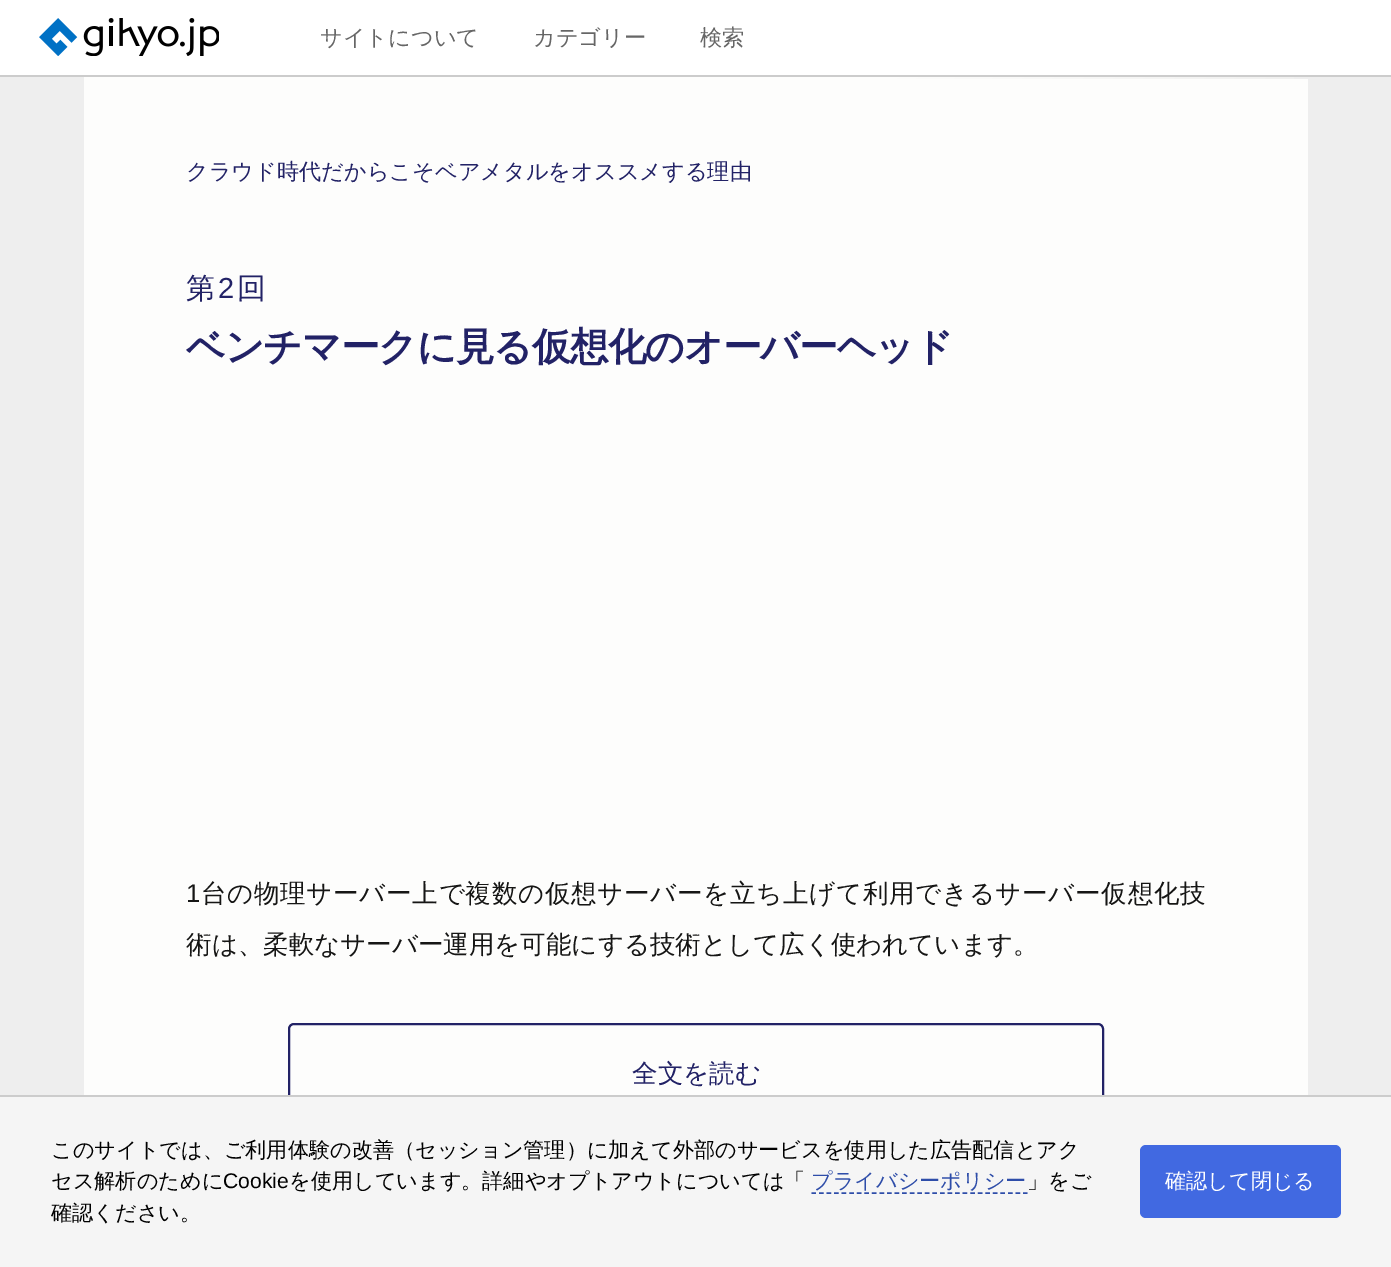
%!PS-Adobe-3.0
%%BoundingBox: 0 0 1391 1267
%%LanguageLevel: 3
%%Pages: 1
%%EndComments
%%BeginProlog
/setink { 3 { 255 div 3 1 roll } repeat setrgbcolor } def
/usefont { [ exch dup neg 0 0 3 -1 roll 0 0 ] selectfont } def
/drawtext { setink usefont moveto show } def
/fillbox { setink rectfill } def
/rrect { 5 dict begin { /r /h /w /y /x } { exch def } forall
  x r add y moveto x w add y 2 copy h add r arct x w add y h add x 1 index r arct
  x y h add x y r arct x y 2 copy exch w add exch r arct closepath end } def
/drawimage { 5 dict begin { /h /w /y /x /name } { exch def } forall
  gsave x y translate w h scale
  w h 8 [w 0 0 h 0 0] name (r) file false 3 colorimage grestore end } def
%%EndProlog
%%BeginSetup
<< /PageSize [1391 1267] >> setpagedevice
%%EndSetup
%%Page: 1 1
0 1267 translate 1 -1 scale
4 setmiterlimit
0 0 1391 1267 238 238 238 fillbox
0 0 1391 75 255 255 255 fillbox
0 75 1391 2 204 204 204 fillbox
(assets/img1.rgb) 39 18 180 38 drawimage
294 75 2 2 255 255 255 fillbox
(サイトについて) 320 45 /WenQuanYiZenHei-Medium 22.2 102 102 102 drawtext
294 75 2 2 204 204 204 fillbox
504 75 4 2 255 255 255 fillbox
(カテゴリー) 533 45 /WenQuanYiZenHei-Medium 22.2 102 102 102 drawtext
504 75 4 2 204 204 204 fillbox
770 75 2 2 255 255 255 fillbox
672 75 4 2 255 255 255 fillbox
(検索) 700 45 /WenQuanYiZenHei-Medium 22.2 102 102 102 drawtext
672 75 4 2 204 204 204 fillbox
770 75 2 2 204 204 204 fillbox
84 79 1224 1016 253 253 252 fillbox
gsave 84 77 moveto 1294 77 lineto 1294 79 lineto 84 79 lineto closepath clip newpath
<< /ShadingType 2 /ColorSpace /DeviceRGB /Coords [561 -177 831 332] /Extend [true true] /Function << /FunctionType 3 /Domain [0 1] /Functions [<< /FunctionType 2 /Domain [0 1] /C0 [0.992 0.992 0.992] /C1 [0.992 0.992 0.988] /N 1 >> << /FunctionType 2 /Domain [0 1] /C0 [0.992 0.992 0.988] /C1 [0.992 0.992 0.988] /N 1 >> << /FunctionType 2 /Domain [0 1] /C0 [0.992 0.992 0.988] /C1 [0.941 0.941 0.937] /N 1 >>] /Bounds [0.35 0.65] /Encode [0 1 0 1 0 1] >> >> shfill grestore
(クラウド時代だからこそベアメタルをオススメする理由) 186 179 /WenQuanYiZenHei-Medium 22.2 34 34 102 drawtext
/WenQuanYiZenHei-Medium 29 usefont
186 298 moveto 3 0 (第) ashow
/LiberationSans-Regular 29 usefont
218 298 moveto 3 0 (2) ashow
/WenQuanYiZenHei-Medium 29 usefont
237 298 moveto 3 0 (回) ashow
/WenQuanYiZenHei-Bold 38.75 usefont
186 360 moveto -1 0 (ベンチマークに見る仮想化のオーバーヘッド) ashow
/LiberationSans-Regular 25.5 usefont
22 22 21 setink
186 902 moveto 0.7 0 (1) ashow
/WenQuanYiZenHei-Medium 25.5 usefont
201 902 moveto 0.7 0 (台の物理サーバー上で複数の仮想サーバーを立ち上げて利用できるサーバー仮想化技) ashow
(術は、柔軟なサーバー運用を可能にする技術として広く使われています。) 186 953 /WenQuanYiZenHei-Medium 25.5 22 22 21 drawtext
34 34 102 setink
2 setlinewidth
289 1024 814 103 5 rrect stroke
(全文を読む) 632 1082 /WenQuanYiZenHei-Medium 25.5 34 34 102 drawtext
0 1097 1391 170 245 245 245 fillbox
0 1095 1391 2 204 204 204 fillbox
(このサイトでは、ご利用体験の改善（セッション管理）に加えて外部のサービスを使用した広告配信とアク) 51 1157 /WenQuanYiZenHei-Medium 21.15 0 0 0 drawtext
(セス解析のために) 51 1188 /WenQuanYiZenHei-Medium 21.15 0 0 0 drawtext
(Cookie) 223 1188 /LiberationSans-Regular 21.15 0 0 0 drawtext
(を使用しています。詳細やオプトアウトについては「) 289 1188 /WenQuanYiZenHei-Medium 21.15 0 0 0 drawtext
(プライバシーポリシー) 811 1188 /WenQuanYiZenHei-Medium 21.15 46 77 169 drawtext
1.5 setlinewidth
[4.5 3.06] 0 setdash
811.5 1193 moveto 1027.5 1193 lineto stroke
(」をご) 1027 1188 /WenQuanYiZenHei-Medium 21.15 0 0 0 drawtext
(確認ください。) 51 1220 /WenQuanYiZenHei-Medium 21.15 0 0 0 drawtext
65 105 225 setink
1140 1145 201 73 6 rrect fill
(確認して閉じる) 1165 1188 /WenQuanYiZenHei-Medium 21.15 255 255 255 drawtext
showpage
%%EOF
